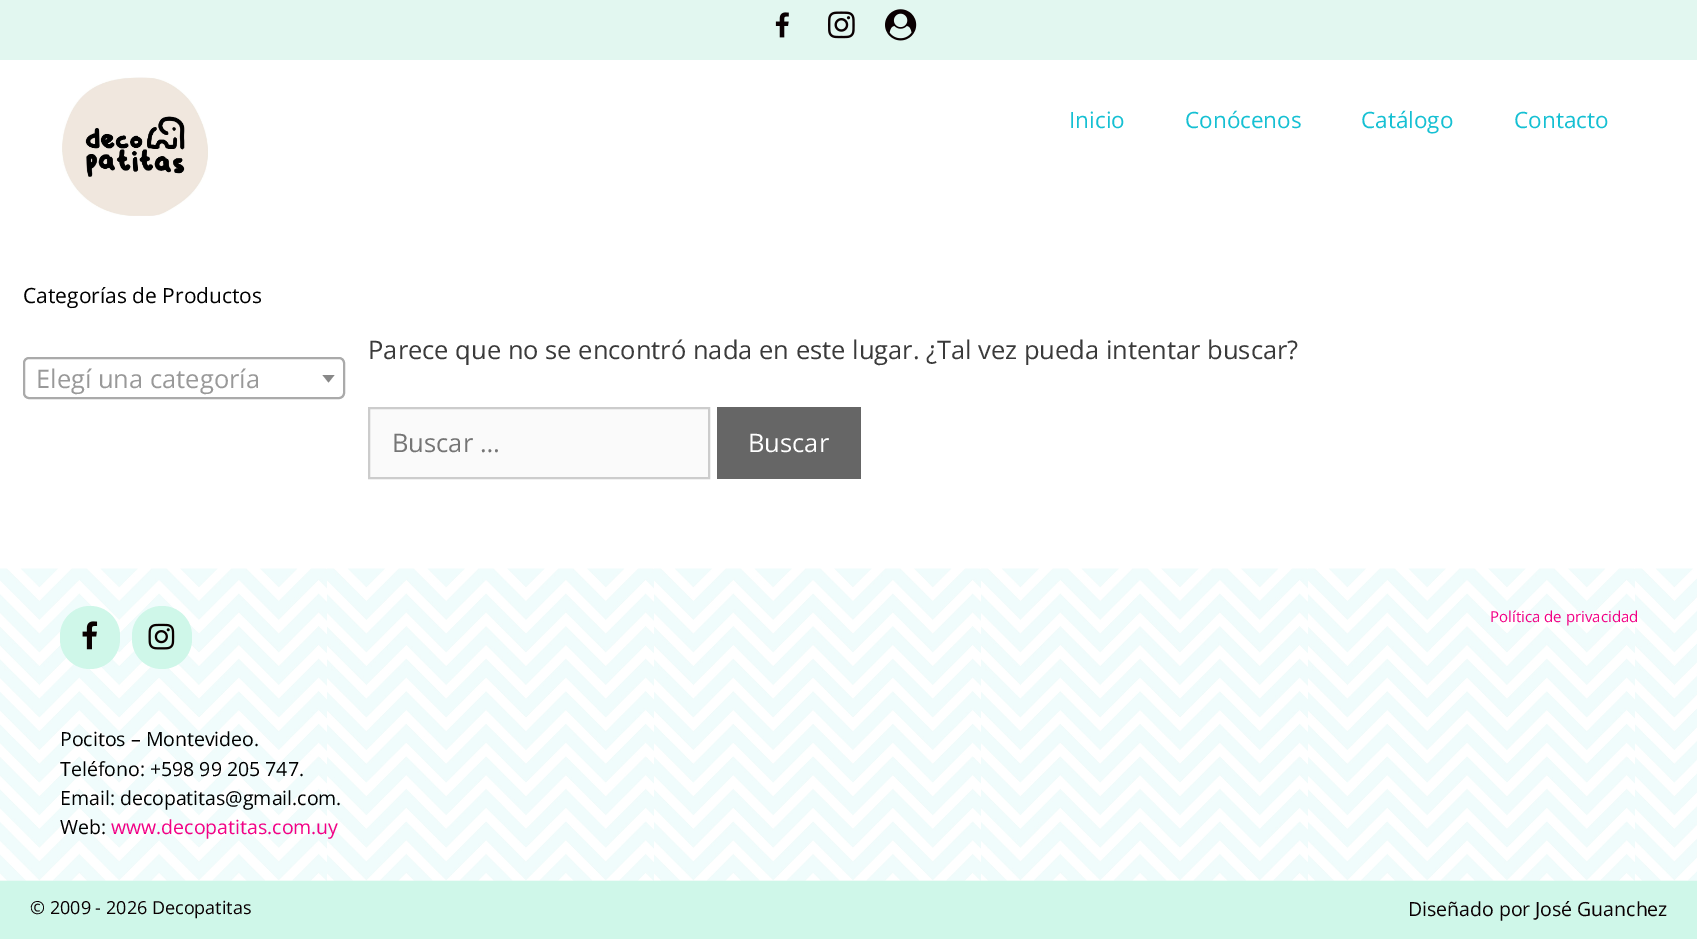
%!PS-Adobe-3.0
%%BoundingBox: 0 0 1697 945
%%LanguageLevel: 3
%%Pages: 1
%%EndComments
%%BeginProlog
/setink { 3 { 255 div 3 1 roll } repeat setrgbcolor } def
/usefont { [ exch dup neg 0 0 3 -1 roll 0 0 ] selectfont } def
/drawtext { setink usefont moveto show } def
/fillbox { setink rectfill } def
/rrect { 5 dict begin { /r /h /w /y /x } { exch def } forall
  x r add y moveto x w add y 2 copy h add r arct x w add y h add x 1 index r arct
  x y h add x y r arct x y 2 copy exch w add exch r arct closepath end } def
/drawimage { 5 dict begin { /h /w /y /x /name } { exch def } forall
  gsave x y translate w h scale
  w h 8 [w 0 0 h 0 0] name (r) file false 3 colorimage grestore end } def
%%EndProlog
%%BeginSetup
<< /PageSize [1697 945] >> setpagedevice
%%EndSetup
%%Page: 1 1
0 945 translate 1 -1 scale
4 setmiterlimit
0 0 1697 945 255 255 255 fillbox
0 0 1697 60 226 247 240 fillbox
(assets/img1.rgb) 775 12 14 26 drawimage
(assets/img2.rgb) 828 11 27 28 drawimage
(assets/img3.rgb) 885 9 32 32 drawimage
(assets/img4.rgb) 62 77 146 139 drawimage
(Inicio) 1069 128 /OpenSans-Regular 22.5 21 192 211 drawtext
(Conócenos) 1185 128 /OpenSans-Regular 22.5 21 192 211 drawtext
(Catálogo) 1361 128 /OpenSans-Regular 22.5 21 192 211 drawtext
(Contacto) 1514 128 /OpenSans-Regular 22.5 21 192 211 drawtext
(Categorías de Productos) 23 303 /OpenSans-Regular 21 0 0 0 drawtext
170 170 170 setink
2 setlinewidth
24 358 320 40 5 rrect stroke
(Elegí una categoría) 36 388 /OpenSans-Regular 25.5 153 153 153 drawtext
136 136 136 setink
322.5 375 moveto 334.5 375 lineto 328.5 382.5 lineto closepath fill
(Parece que no se encontró nada en este lugar. ¿Tal vez pueda intentar buscar?) 368 359 /OpenSans-Regular 25.5 58 58 58 drawtext
250 250 250 setink
369 408 moveto 709 408 lineto 709 478 lineto 369 478 lineto closepath gsave fill grestore
204 204 204 setink
stroke
(Buscar …) 392 452 /OpenSans-Regular 25.5 117 117 117 drawtext
717 407 144 72 102 102 102 fillbox
(Buscar) 748 452 /OpenSans-Regular 25.5 255 255 255 drawtext
0 880 1697 1 226 247 240 fillbox
(assets/img5.rgb) 0 568 1697 313 drawimage
(Política de privacidad) 1490 622 /OpenSans-Regular 15 242 0 133 drawtext
207 247 233 setink
60 606 60 63 30 rrect fill
(assets/img6.rgb) 82 621 16 29 drawimage
132 606 60 63 30 rrect fill
(assets/img7.rgb) 148 623 27 27 drawimage
(Pocitos – Montevideo.) 60 746 /OpenSans-Regular 19.5 0 0 0 drawtext
(Teléfono: +598 99 205 747.) 60 776 /OpenSans-Regular 19.5 0 0 0 drawtext
(Email: decopatitas@gmail.com.) 60 805 /OpenSans-Regular 19.5 0 0 0 drawtext
(Web:) 60 834 /OpenSans-Regular 19.5 0 0 0 drawtext
(www.decopatitas.com.uy) 111 834 /OpenSans-Regular 19.5 242 0 133 drawtext
0 881 1697 58 207 247 233 fillbox
(© 2009 - 2026 Decopatitas) 30 914 /OpenSans-Regular 18 10 0 2 drawtext
(Diseñado por) 1408 916 /OpenSans-Regular 19.5 10 0 2 drawtext
(José Guanchez) 1535 916 /OpenSans-Regular 19.5 10 0 2 drawtext
showpage
%%EOF
